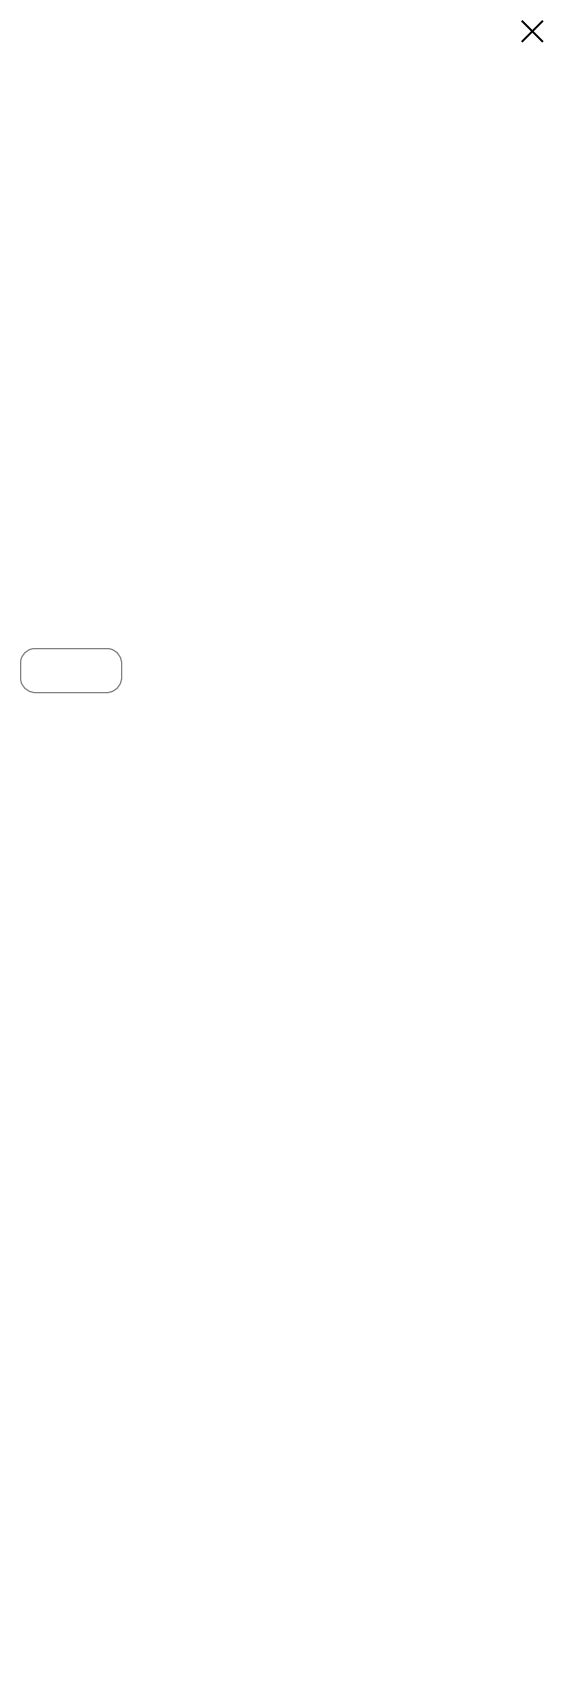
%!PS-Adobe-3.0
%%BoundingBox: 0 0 564 1696
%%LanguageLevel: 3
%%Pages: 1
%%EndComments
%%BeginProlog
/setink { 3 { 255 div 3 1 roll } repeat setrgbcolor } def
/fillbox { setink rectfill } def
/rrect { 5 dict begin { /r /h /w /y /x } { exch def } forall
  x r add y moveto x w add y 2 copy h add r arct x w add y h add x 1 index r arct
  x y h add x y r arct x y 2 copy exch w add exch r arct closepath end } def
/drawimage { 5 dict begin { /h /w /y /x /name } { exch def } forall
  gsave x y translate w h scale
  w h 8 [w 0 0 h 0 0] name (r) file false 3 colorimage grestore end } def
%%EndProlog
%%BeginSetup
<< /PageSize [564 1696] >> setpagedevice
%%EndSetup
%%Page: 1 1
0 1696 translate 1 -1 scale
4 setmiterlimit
0 0 564 1696 255 255 255 fillbox
(assets/img1.rgb) 521 20 23 23 drawimage
128 128 128 setink
20.5 648.5 101 44 14.5 rrect stroke
showpage
%%EOF
